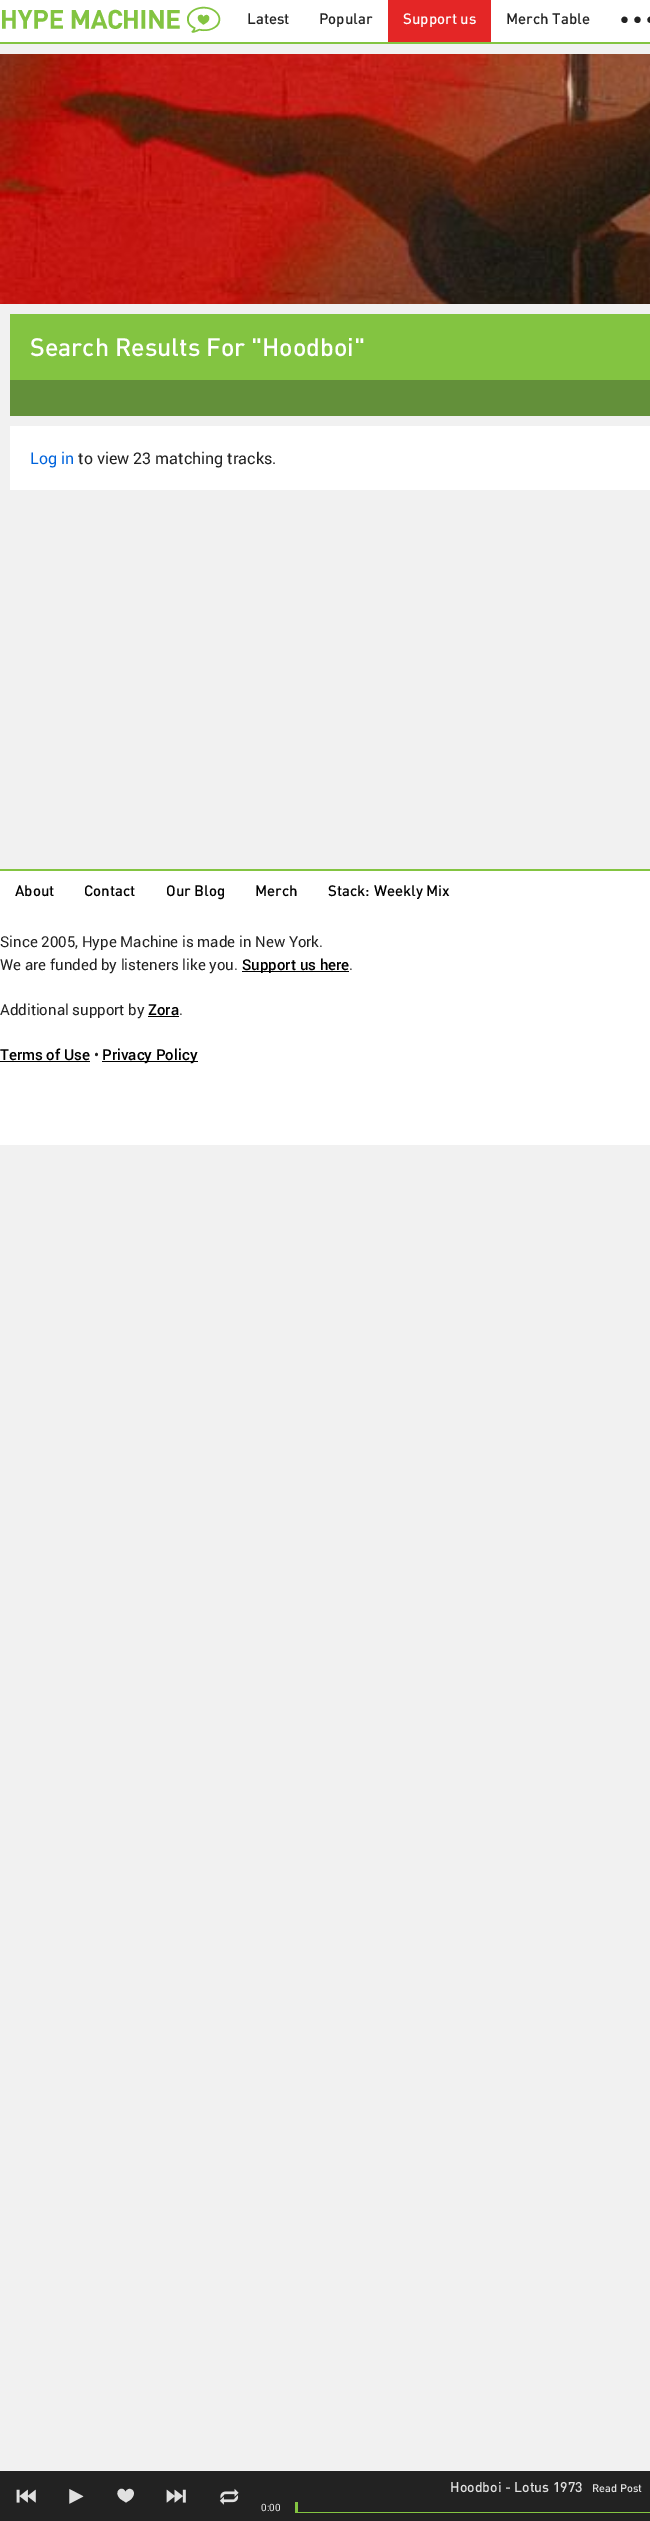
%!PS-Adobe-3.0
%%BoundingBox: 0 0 650 2521
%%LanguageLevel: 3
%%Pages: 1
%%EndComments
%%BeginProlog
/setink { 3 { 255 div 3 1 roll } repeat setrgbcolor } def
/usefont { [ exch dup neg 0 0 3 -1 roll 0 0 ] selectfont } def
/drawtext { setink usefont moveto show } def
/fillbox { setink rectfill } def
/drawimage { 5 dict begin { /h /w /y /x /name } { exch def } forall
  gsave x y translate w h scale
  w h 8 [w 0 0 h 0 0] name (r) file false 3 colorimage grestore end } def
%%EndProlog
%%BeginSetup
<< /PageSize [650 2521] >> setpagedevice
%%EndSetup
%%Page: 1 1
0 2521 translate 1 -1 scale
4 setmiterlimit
0 0 650 2521 241 241 241 fillbox
0 0 650 42 255 255 255 fillbox
0 42 650 2 131 196 65 fillbox
(1) 0 28 /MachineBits-Regular 38 131 196 65 drawtext
(Latest) 247 24 /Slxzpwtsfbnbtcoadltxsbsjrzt-Medium 15 34 34 34 drawtext
(Popular) 319 24 /Slxzpwtsfbnbtcoadltxsbsjrzt-Medium 15 34 34 34 drawtext
388 0 103 42 228 38 38 fillbox
(Support us) 403 24 /Slxzpwtsfbnbtcoadltxsbsjrzt-Medium 15 255 255 255 drawtext
(Merch Table) 506 24 /Slxzpwtsfbnbtcoadltxsbsjrzt-Medium 15 34 34 34 drawtext
(● ● ●) 620 24 /LiberationSerif-Bold 15 34 34 34 drawtext
(assets/img1.rgb) 0 54 650 250 drawimage
10 314 640 66 131 196 65 fillbox
(Search Results For "Hoodboi") 30 356 /Slxzpwtsfbnbtcoadltxsbsjrzt-Medium 25 255 255 255 drawtext
10 380 640 36 99 144 58 fillbox
10 426 640 64 255 255 255 fillbox
(Log in) 30 464 /Roboto-Regular 16 0 99 220 drawtext
(to view 23 matching tracks.) 78 464 /Roboto-Regular 16 34 34 34 drawtext
0 871 650 274 255 255 255 fillbox
0 869 650 2 131 196 65 fillbox
(About) 15 896 /Slxzpwtsfbnbtcoadltxsbsjrzt-Medium 15 0 0 0 drawtext
(Contact) 84 896 /Slxzpwtsfbnbtcoadltxsbsjrzt-Medium 15 0 0 0 drawtext
(Our Blog) 166 896 /Slxzpwtsfbnbtcoadltxsbsjrzt-Medium 15 0 0 0 drawtext
(Merch) 255 896 /Slxzpwtsfbnbtcoadltxsbsjrzt-Medium 15 0 0 0 drawtext
(Stack: Weekly Mix) 328 896 /Slxzpwtsfbnbtcoadltxsbsjrzt-Medium 15 0 0 0 drawtext
(Since 2005, Hype Machine is made in New York.) 0 947 /Roboto-Regular 15 34 34 34 drawtext
(We are funded by listeners like you.) 0 970 /Roboto-Regular 15 34 34 34 drawtext
242 971 107 1 0 0 0 fillbox
(Support us here) 242 970 /Roboto-Medium 15 0 0 0 drawtext
(.) 349 970 /Roboto-Regular 15 34 34 34 drawtext
(Additional support by) 0 1015 /Roboto-Regular 15 34 34 34 drawtext
(Zora) 148 1015 /Roboto-Medium 15 0 0 0 drawtext
148 1016 31 1 0 0 0 fillbox
(.) 179 1015 /Roboto-Regular 15 34 34 34 drawtext
(Terms of Use) 0 1060 /Roboto-Medium 15 0 0 0 drawtext
0 1061 90 1 0 0 0 fillbox
(•) 94 1060 /Roboto-Regular 15 34 34 34 drawtext
102 1061 96 1 0 0 0 fillbox
(Privacy Policy) 102 1060 /Roboto-Medium 15 0 0 0 drawtext
0 2471 650 50 34 34 34 fillbox
(assets/img2.rgb) 16 2489 20 14 drawimage
(assets/img3.rgb) 69 2489 15 15 drawimage
224 224 224 setink
125.5 2492 moveto 129 2484.5 139.5 2492 130 2500 curveto 126 2502.5 lineto 120.5 2499 lineto 112.5 2491.5 122.5 2484.5 125.5 2492 curveto closepath fill
(assets/img4.rgb) 166 2489 20 14 drawimage
(assets/img5.rgb) 219 2488 20 17 drawimage
(Hoodboi - Lotus 1973) 450 2492 /Slxzpwtsfbnbtcoadltxsbsjrzt-Medium 14 224 224 224 drawtext
(Read Post) 592 2492 /Slxzpwtsfbnbtcoadltxsbsjrzt-Medium 11 224 224 224 drawtext
(0:00) 261 2511 /Roboto-Regular 10 224 224 224 drawtext
295 2512 355 1 131 196 65 fillbox
295 2502 3 10 131 196 65 fillbox
showpage
%%EOF
